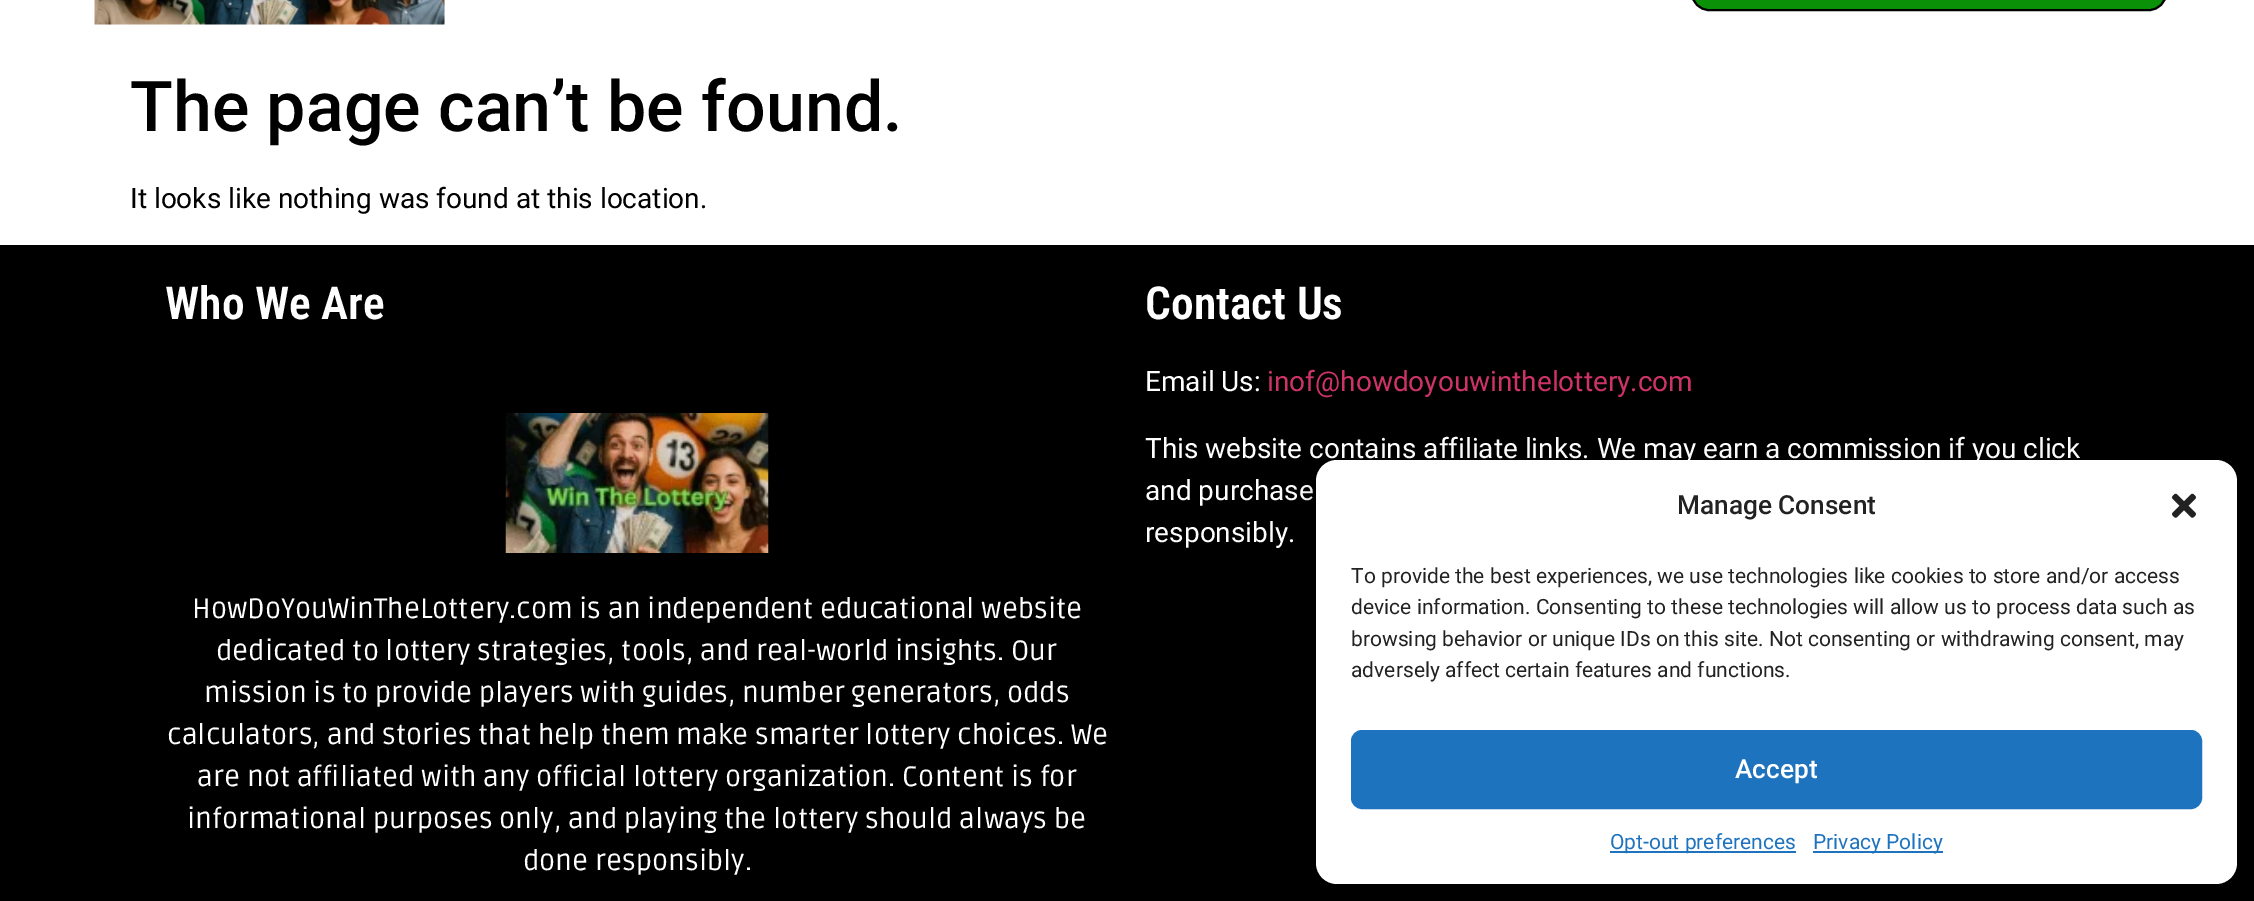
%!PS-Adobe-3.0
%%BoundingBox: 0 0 2254 901
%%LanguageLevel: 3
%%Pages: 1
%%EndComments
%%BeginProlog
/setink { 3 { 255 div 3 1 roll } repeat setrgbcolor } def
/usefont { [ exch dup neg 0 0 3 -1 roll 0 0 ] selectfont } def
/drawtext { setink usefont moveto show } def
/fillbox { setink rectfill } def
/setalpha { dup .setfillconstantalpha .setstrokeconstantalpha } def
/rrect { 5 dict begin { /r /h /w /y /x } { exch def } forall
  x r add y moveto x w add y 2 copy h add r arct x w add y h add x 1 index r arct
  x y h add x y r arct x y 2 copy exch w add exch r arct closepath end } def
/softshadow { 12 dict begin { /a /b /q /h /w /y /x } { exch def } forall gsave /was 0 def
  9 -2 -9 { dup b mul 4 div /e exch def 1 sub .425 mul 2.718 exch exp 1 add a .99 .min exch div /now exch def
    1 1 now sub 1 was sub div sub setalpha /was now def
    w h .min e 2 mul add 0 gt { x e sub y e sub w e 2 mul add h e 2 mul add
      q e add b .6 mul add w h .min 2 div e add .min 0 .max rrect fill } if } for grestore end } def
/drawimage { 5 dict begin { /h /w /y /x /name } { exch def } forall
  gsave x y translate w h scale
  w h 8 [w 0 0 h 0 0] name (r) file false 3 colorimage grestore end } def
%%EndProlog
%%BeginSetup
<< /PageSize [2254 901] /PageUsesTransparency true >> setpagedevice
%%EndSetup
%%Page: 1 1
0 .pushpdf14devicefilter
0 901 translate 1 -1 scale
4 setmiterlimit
0 0 2254 901 255 255 255 fillbox
(assets/img1.rgb) 94 0 351 25 drawimage
10 145 8 setink
1692 -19 474 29 17 rrect gsave fill grestore
0 0 0 setink
2 setlinewidth
stroke
(The page can’t be found.) 130 131 /Roboto-Medium 70 0 0 0 drawtext
(It looks like nothing was found at this location.) 130 208 /Roboto-Regular 28 0 0 0 drawtext
0 245 2254 656 0 0 0 fillbox
(Who We Are) 165 319 /RobotoCondensed-SemiBold 45.5 255 255 255 drawtext
(assets/img2.rgb) 505 413 264 140 drawimage
(HowDoYouWinTheLottery.com is an independent educational website) 192 618 /Ruda-Regular 28 255 255 255 drawtext
(dedicated to lottery strategies, tools, and real-world insights. Our) 216 660 /Ruda-Regular 28 255 255 255 drawtext
(mission is to provide players with guides, number generators, odds) 204 702 /Ruda-Regular 28 255 255 255 drawtext
(calculators, and stories that help them make smarter lottery choices. We) 167 744 /Ruda-Regular 28 255 255 255 drawtext
(are not affiliated with any official lottery organization. Content is for) 197 786 /Ruda-Regular 28 255 255 255 drawtext
(informational purposes only, and playing the lottery should always be) 187 828 /Ruda-Regular 28 255 255 255 drawtext
(done responsibly.) 523 870 /Ruda-Regular 28 255 255 255 drawtext
(Contact Us) 1145 319 /RobotoCondensed-SemiBold 45.5 255 255 255 drawtext
(Email Us:) 1145 391 /Roboto-Regular 28 255 255 255 drawtext
(inof@howdoyouwinthelottery.com) 1267 391 /Roboto-Regular 28 204 51 102 drawtext
(This website contains affiliate links. We may earn a commission if you click) 1145 458 /Roboto-Regular 28 255 255 255 drawtext
(and purchase) 1145 500 /Roboto-Regular 28 255 255 255 drawtext
(responsibly.) 1145 542 /Roboto-Regular 28 255 255 255 drawtext
0 0 0 setink
1316 471 921 423 21 5 0.23 softshadow
1316 478 921 423 21 17.5 0.19 softshadow
255 255 255 setink
1316 460 921 424 21 rrect fill
(Manage Consent) 1677 514 /Roboto-Medium 26.25 34 34 34 drawtext
(assets/img3.rgb) 2172 493 24 25 drawimage
(To provide the best experiences, we use technologies like cookies to store and/or access) 1351 583 /Roboto-Regular 21 34 34 34 drawtext
(device information. Consenting to these technologies will allow us to process data such as) 1351 614 /Roboto-Regular 21 34 34 34 drawtext
(browsing behavior or unique IDs on this site. Not consenting or withdrawing consent, may) 1351 646 /Roboto-Regular 21 34 34 34 drawtext
(adversely affect certain features and functions.) 1351 677 /Roboto-Regular 21 34 34 34 drawtext
30 115 190 setink
1352 731 849 77 10 rrect gsave fill grestore
stroke
(Accept) 1735 778 /Roboto-Medium 26.25 255 255 255 drawtext
1610 851 186 2 30 115 190 fillbox
(Opt-out preferences) 1610 849 /Roboto-Regular 21 30 115 190 drawtext
1813 851 130 2 30 115 190 fillbox
(Privacy Policy) 1813 849 /Roboto-Regular 21 30 115 190 drawtext
.poppdf14devicefilter showpage
%%EOF
